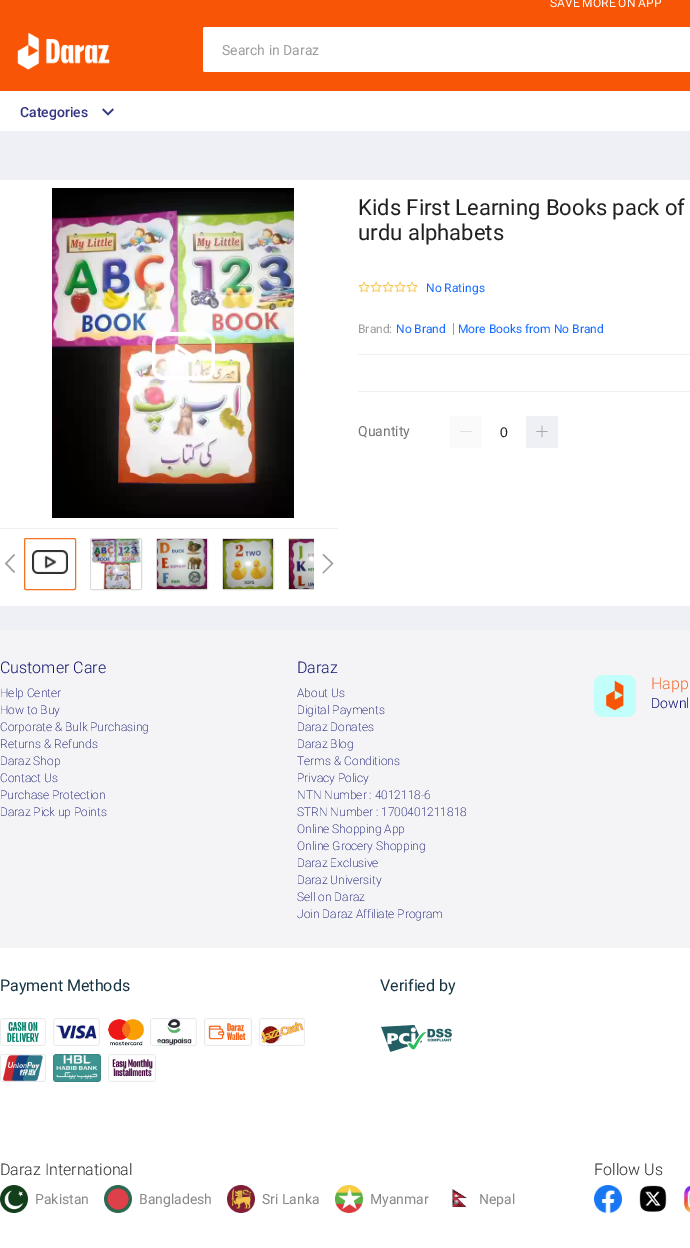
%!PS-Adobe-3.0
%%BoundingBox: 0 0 690 1248
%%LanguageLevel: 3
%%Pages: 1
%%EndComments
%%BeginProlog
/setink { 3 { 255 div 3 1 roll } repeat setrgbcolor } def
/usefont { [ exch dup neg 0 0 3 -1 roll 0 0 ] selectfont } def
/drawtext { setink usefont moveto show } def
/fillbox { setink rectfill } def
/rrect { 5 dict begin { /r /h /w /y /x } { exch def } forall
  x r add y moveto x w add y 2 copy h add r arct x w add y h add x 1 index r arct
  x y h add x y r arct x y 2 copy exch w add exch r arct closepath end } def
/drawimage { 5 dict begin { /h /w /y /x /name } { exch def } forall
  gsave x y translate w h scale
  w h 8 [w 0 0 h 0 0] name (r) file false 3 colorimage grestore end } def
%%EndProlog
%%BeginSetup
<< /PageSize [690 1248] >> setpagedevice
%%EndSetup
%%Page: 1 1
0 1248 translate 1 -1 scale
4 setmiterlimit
0 0 690 1248 239 240 245 fillbox
0 91 690 40 255 255 255 fillbox
0 0 690 91 248 86 6 fillbox
(SAVE MORE ON APP) 550 7 /Roboto-Regular 12 255 255 255 drawtext
(assets/img1.rgb) 17 33 93 37 drawimage
203 27 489 45 2 rrect fill
(Search in Daraz) 222 55 /Roboto-Regular 14 158 158 158 drawtext
(Categories) 20 117 /Roboto-Medium 14 51 54 131 drawtext
(assets/img2.rgb) 102 108 12 8 drawimage
0 180 690 426 255 255 255 fillbox
0 528 338 1 239 240 245 fillbox
(assets/img3.rgb) 52 188 242 330 drawimage
(assets/img4.rgb) 152 332 63 48 drawimage
158 158 158 setink
15 572 moveto 7 563.5 lineto 15 555 lineto 14 554 lineto 5 563.5 lineto 14 573 lineto closepath fill
245 114 36 setink
24.5 538.5 51 51 1.5 rrect stroke
(assets/img5.rgb) 32 550 36 24 drawimage
218 218 218 setink
90.5 538.5 51 51 1.5 rrect stroke
(assets/img6.rgb) 91 539 50 50 drawimage
156.5 538.5 51 51 1.5 rrect stroke
(assets/img7.rgb) 157 539 50 50 drawimage
222.5 538.5 51 51 1.5 rrect stroke
(assets/img8.rgb) 223 539 50 50 drawimage
gsave
24 538 290 52 rectclip
288.5 538.5 51 51 1.5 rrect stroke
grestore
(assets/img9.rgb) 289 539 25 50 drawimage
158 158 158 setink
323.5 573.5 moveto 322.5 572.5 lineto 331.5 563.5 lineto 322.5 555 lineto 323.5 554 lineto 333.5 563.5 lineto closepath fill
(Kids First Learning Books pack of) 358 215 /Roboto-Regular 22 33 33 33 drawtext
(urdu alphabets) 358 240 /Roboto-Regular 22 33 33 33 drawtext
(assets/img10.rgb) 358 281 12 12 drawimage
(assets/img10.rgb) 370 281 12 12 drawimage
(assets/img10.rgb) 382 281 12 12 drawimage
(assets/img10.rgb) 394 281 12 12 drawimage
(assets/img10.rgb) 406 281 12 12 drawimage
(No Ratings) 426 292 /Roboto-Regular 12 19 108 255 drawtext
358 354 332 1 239 240 245 fillbox
(Brand:) 358 333 /Roboto-Regular 12 158 158 158 drawtext
(No Brand) 396 333 /Roboto-Regular 12 19 108 255 drawtext
453 323 1 12 158 158 158 fillbox
(More Books from No Brand) 458 333 /Roboto-Regular 12 19 108 255 drawtext
358 391 332 1 239 240 245 fillbox
(Quantity) 358 436 /Roboto-Regular 14 117 117 117 drawtext
450 416 32 32 250 250 250 fillbox
(assets/img11.rgb) 460 431 12 1 drawimage
526 416 32 32 239 240 245 fillbox
(assets/img12.rgb) 536 425 12 13 drawimage
(0) 500 437 /LiberationSans-Regular 14 33 33 33 drawtext
0 630 690 318 244 244 246 fillbox
(Customer Care) 0 673 /Roboto-Light 16 15 19 109 drawtext
(Help Center) 0 697 /Roboto-ExtraLight 12 15 19 109 drawtext
(How to Buy) 0 714 /Roboto-ExtraLight 12 15 19 109 drawtext
(Corporate & Bulk Purchasing) 0 731 /Roboto-ExtraLight 12 15 19 109 drawtext
(Returns & Refunds) 0 748 /Roboto-ExtraLight 12 15 19 109 drawtext
(Daraz Shop) 0 765 /Roboto-ExtraLight 12 15 19 109 drawtext
(Contact Us) 0 782 /Roboto-ExtraLight 12 15 19 109 drawtext
(Purchase Protection) 0 799 /Roboto-ExtraLight 12 15 19 109 drawtext
(Daraz Pick up Points) 0 816 /Roboto-ExtraLight 12 15 19 109 drawtext
(Daraz) 297 673 /Roboto-Light 16 15 19 109 drawtext
(About Us) 297 697 /Roboto-ExtraLight 12 15 19 109 drawtext
(Digital Payments) 297 714 /Roboto-ExtraLight 12 15 19 109 drawtext
(Daraz Donates) 297 731 /Roboto-ExtraLight 12 15 19 109 drawtext
(Daraz Blog) 297 748 /Roboto-ExtraLight 12 15 19 109 drawtext
(Terms & Conditions) 297 765 /Roboto-ExtraLight 12 15 19 109 drawtext
(Privacy Policy) 297 782 /Roboto-ExtraLight 12 15 19 109 drawtext
(NTN Number : 4012118-6) 297 799 /Roboto-ExtraLight 12 15 19 109 drawtext
(STRN Number : 1700401211818) 297 816 /Roboto-ExtraLight 12 15 19 109 drawtext
(Online Shopping App) 297 833 /Roboto-ExtraLight 12 15 19 109 drawtext
(Online Grocery Shopping) 297 850 /Roboto-ExtraLight 12 15 19 109 drawtext
(Daraz Exclusive) 297 867 /Roboto-ExtraLight 12 15 19 109 drawtext
(Daraz University) 297 884 /Roboto-ExtraLight 12 15 19 109 drawtext
(Sell on Daraz) 297 901 /Roboto-ExtraLight 12 15 19 109 drawtext
(Join Daraz Affiliate Program) 297 918 /Roboto-ExtraLight 12 15 19 109 drawtext
(assets/img13.rgb) 594 675 42 42 drawimage
(Happ) 651 689 /Roboto-Light 16 243 111 54 drawtext
(Downl) 651 708 /Roboto-Light 14 15 19 109 drawtext
0 948 690 300 255 255 255 fillbox
(Payment Methods) 0 991 /Roboto-Regular 16 24 53 68 drawtext
(assets/img14.rgb) 0 1018 46 28 drawimage
(assets/img15.rgb) 53 1018 47 28 drawimage
(assets/img16.rgb) 108 1019 36 27 drawimage
(assets/img17.rgb) 150 1018 47 28 drawimage
(assets/img18.rgb) 204 1018 48 28 drawimage
(assets/img19.rgb) 259 1018 46 28 drawimage
(assets/img20.rgb) 0 1054 46 28 drawimage
(assets/img21.rgb) 53 1054 48 28 drawimage
(assets/img22.rgb) 108 1054 48 28 drawimage
(Verified by) 380 991 /Roboto-Regular 16 24 53 68 drawtext
(assets/img23.rgb) 381 1024 71 28 drawimage
(Daraz International) 0 1175 /Roboto-Light 16 42 42 42 drawtext
(assets/img24.rgb) 0 1185 28 28 drawimage
(Pakistan) 35 1204 /Roboto-Regular 14 136 136 136 drawtext
(assets/img25.rgb) 104 1185 28 28 drawimage
(Bangladesh) 139 1204 /Roboto-Regular 14 136 136 136 drawtext
(assets/img26.rgb) 227 1185 28 28 drawimage
(Sri Lanka) 262 1204 /Roboto-Regular 14 136 136 136 drawtext
(assets/img27.rgb) 335 1185 28 28 drawimage
(Myanmar) 370 1204 /Roboto-Regular 14 136 136 136 drawtext
(assets/img28.rgb) 444 1185 28 28 drawimage
(Nepal) 479 1204 /Roboto-Regular 14 136 136 136 drawtext
(Follow Us) 594 1175 /Roboto-Light 16 42 42 42 drawtext
(assets/img29.rgb) 594 1185 28 28 drawimage
(assets/img30.rgb) 639 1185 28 27 drawimage
(assets/img31.rgb) 684 1185 6 28 drawimage
showpage
%%EOF
